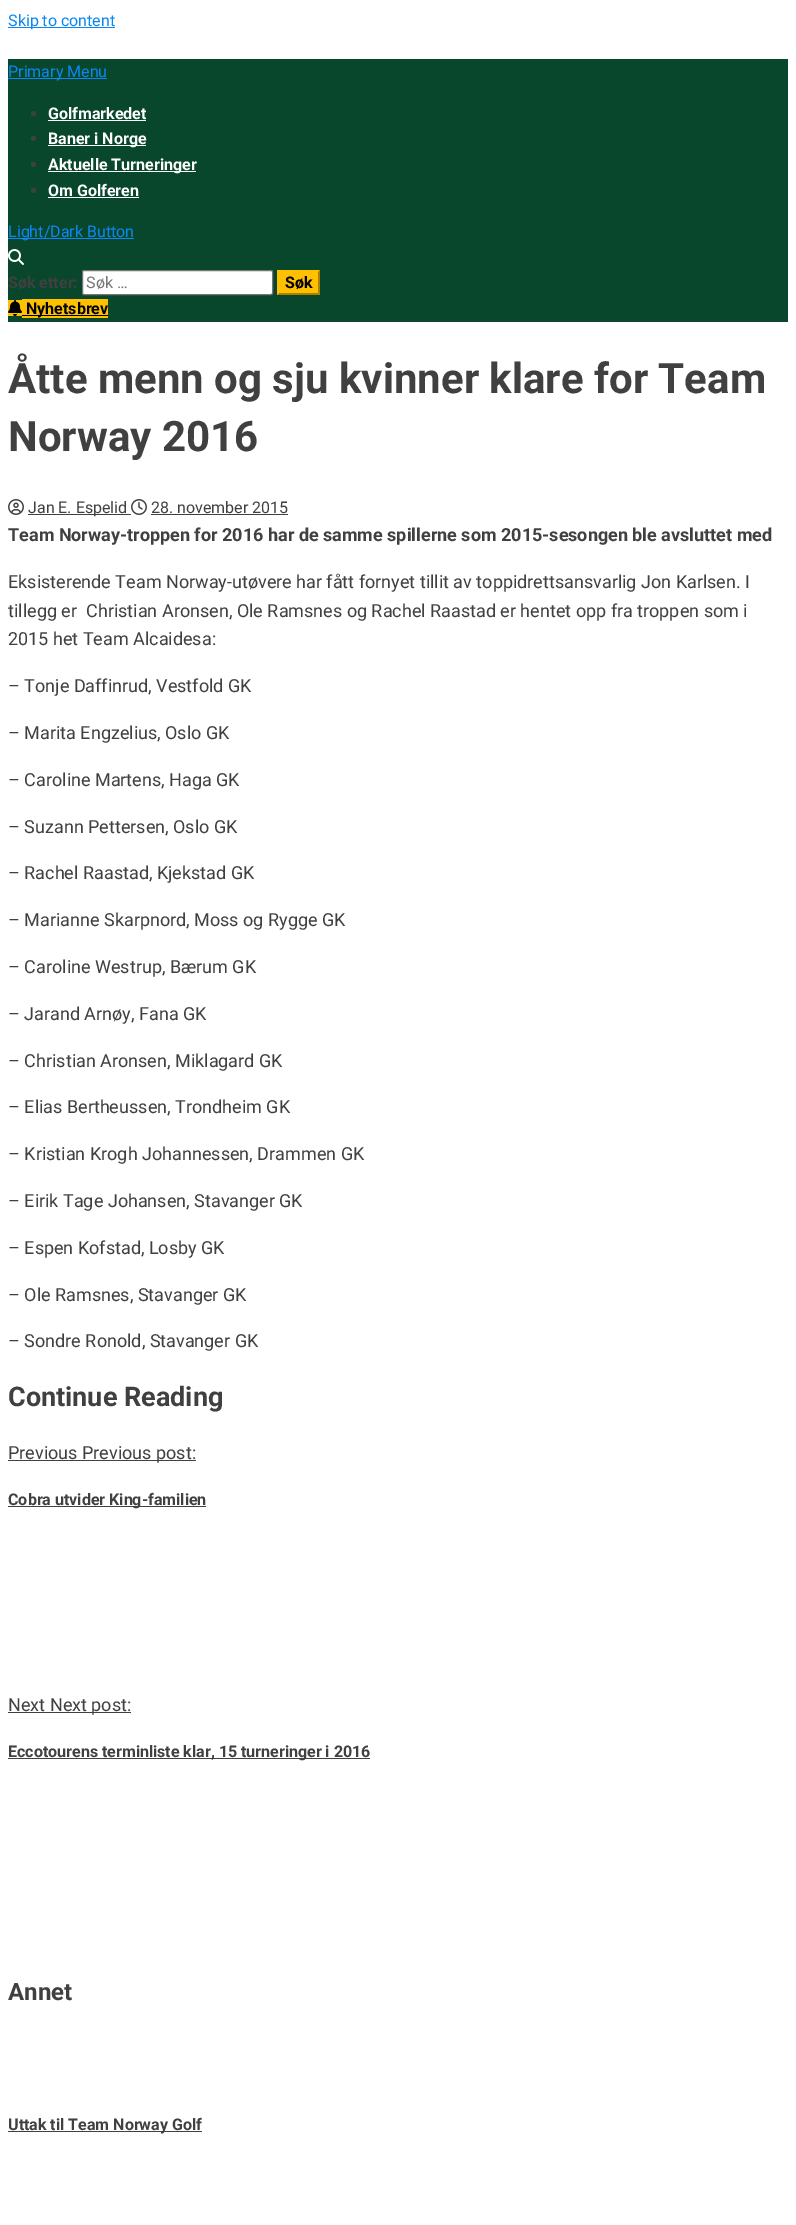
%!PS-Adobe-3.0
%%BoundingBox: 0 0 796 2225
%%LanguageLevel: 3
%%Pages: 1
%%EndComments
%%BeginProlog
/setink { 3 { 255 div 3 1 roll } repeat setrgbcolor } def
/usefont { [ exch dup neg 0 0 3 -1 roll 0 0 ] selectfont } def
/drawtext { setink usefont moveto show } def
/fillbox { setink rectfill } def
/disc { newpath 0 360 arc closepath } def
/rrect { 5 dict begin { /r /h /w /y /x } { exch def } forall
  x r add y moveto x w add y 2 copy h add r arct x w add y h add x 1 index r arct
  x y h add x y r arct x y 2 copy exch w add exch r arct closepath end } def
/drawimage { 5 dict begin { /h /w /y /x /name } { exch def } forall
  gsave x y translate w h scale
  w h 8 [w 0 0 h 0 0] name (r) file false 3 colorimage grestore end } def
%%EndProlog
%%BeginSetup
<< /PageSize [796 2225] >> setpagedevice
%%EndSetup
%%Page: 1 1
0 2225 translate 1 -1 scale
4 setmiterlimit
0 0 796 2225 255 255 255 fillbox
8 27 107 1 9 135 245 fillbox
(Skip to content) 8 26 /Roboto-Regular 16 9 135 245 drawtext
8 59 780 263 9 71 44 fillbox
8 78 99 1 9 135 245 fillbox
(Primary Menu) 8 77 /Roboto-Regular 16 9 135 245 drawtext
64 64 64 setink
33.5 113.5 2.5 disc fill
(Golfmarkedet) 48 119 /Roboto-Bold 16 255 255 255 drawtext
48 120 98 1 255 255 255 fillbox
64 64 64 setink
33.5 138.5 2.5 disc fill
48 145 98 1 255 255 255 fillbox
(Baner i Norge) 48 144 /Roboto-Bold 16 255 255 255 drawtext
64 64 64 setink
33.5 164.5 2.5 disc fill
48 171 148 1 255 255 255 fillbox
(Aktuelle Turneringer) 48 170 /Roboto-Bold 16 255 255 255 drawtext
64 64 64 setink
33.5 190.5 2.5 disc fill
(Om Golferen) 48 196 /Roboto-Bold 16 255 255 255 drawtext
48 197 91 1 255 255 255 fillbox
8 238 126 1 9 135 245 fillbox
(Light/Dark Button) 8 237 /Roboto-Regular 16 9 135 245 drawtext
(assets/img1.rgb) 8 249 16 16 drawimage
(Søk etter:) 8 288 /Roboto-Bold 16 64 64 64 drawtext
255 255 255 setink
82.5 270.5 190 24 1.5 rrect gsave fill grestore
118 118 118 setink
stroke
(Søk …) 86 288 /Roboto-Regular 16 117 117 117 drawtext
277 270 43 25 255 192 0 fillbox
170 128 0 setink
320 270 moveto 320 295 lineto 318 293 lineto 318 272 lineto closepath fill
320 295 moveto 277 295 lineto 279 293 lineto 318 293 lineto closepath fill
255 192 0 setink
277 295 moveto 277 270 lineto 279 272 lineto 279 293 lineto closepath fill
(Søk) 285 288 /Roboto-Bold 16 0 0 0 drawtext
8 300 14 16 255 192 0 fillbox
22 299 86 19 255 192 0 fillbox
(assets/img2.rgb) 8 300 14 16 drawimage
22 315 86 1 0 0 0 fillbox
(Nyhetsbrev) 26 314 /Roboto-Bold 16 0 0 0 drawtext
(Åtte menn og sju kvinner klare for Team) 8 393 /Roboto-Bold 42 64 64 64 drawtext
(Norway 2016) 8 451 /Roboto-Bold 42 64 64 64 drawtext
(assets/img3.rgb) 8 499 16 16 drawimage
28 514 103 1 64 64 64 fillbox
(Jan E. Espelid) 28 513 /Roboto-Regular 16 64 64 64 drawtext
(assets/img4.rgb) 131 499 16 16 drawimage
(28. november 2015) 151 513 /Roboto-Regular 16 64 64 64 drawtext
151 514 137 1 64 64 64 fillbox
(Team Norway-troppen for 2016 har de samme spillerne som 2015-sesongen ble avsluttet med) 8 541 /Roboto-Bold 18 64 64 64 drawtext
(Eksisterende Team Norway-utøvere har fått fornyet tillit av toppidrettsansvarlig Jon Karlsen. I) 8 588 /Roboto-Regular 18 64 64 64 drawtext
(tillegg er) 8 617 /Roboto-Regular 18 64 64 64 drawtext
(Christian Aronsen, Ole Ramsnes og Rachel Raastad er hentet opp fra troppen som i) 86 617 /Roboto-Regular 18 64 64 64 drawtext
(2015 het Team Alcaidesa:) 8 645 /Roboto-Regular 18 64 64 64 drawtext
(– Tonje Daffinrud, Vestfold GK) 8 692 /Roboto-Regular 18 64 64 64 drawtext
(– Marita Engzelius, Oslo GK) 8 739 /Roboto-Regular 18 64 64 64 drawtext
(– Caroline Martens, Haga GK) 8 786 /Roboto-Regular 18 64 64 64 drawtext
(– Suzann Pettersen, Oslo GK) 8 833 /Roboto-Regular 18 64 64 64 drawtext
(– Rachel Raastad, Kjekstad GK) 8 879 /Roboto-Regular 18 64 64 64 drawtext
(– Marianne Skarpnord, Moss og Rygge GK) 8 926 /Roboto-Regular 18 64 64 64 drawtext
(– Caroline Westrup, Bærum GK) 8 973 /Roboto-Regular 18 64 64 64 drawtext
(– Jarand Arnøy, Fana GK) 8 1020 /Roboto-Regular 18 64 64 64 drawtext
(– Christian Aronsen, Miklagard GK) 8 1067 /Roboto-Regular 18 64 64 64 drawtext
(– Elias Bertheussen, Trondheim GK) 8 1113 /Roboto-Regular 18 64 64 64 drawtext
(– Kristian Krogh Johannessen, Drammen GK) 8 1160 /Roboto-Regular 18 64 64 64 drawtext
(– Eirik Tage Johansen, Stavanger GK) 8 1207 /Roboto-Regular 18 64 64 64 drawtext
(– Espen Kofstad, Losby GK) 8 1254 /Roboto-Regular 18 64 64 64 drawtext
(– Ole Ramsnes, Stavanger GK) 8 1301 /Roboto-Regular 18 64 64 64 drawtext
(– Sondre Ronold, Stavanger GK) 8 1347 /Roboto-Regular 18 64 64 64 drawtext
(Continue Reading) 8 1406 /Roboto-Bold 27 64 64 64 drawtext
8 1460 188 1 64 64 64 fillbox
(Previous Previous post:) 8 1459 /Roboto-Regular 18 64 64 64 drawtext
8 1506 198 1 64 64 64 fillbox
(Cobra utvider King-familien) 8 1505 /Roboto-Bold 16 64 64 64 drawtext
8 1712 123 1 64 64 64 fillbox
(Next Next post:) 8 1711 /Roboto-Regular 18 64 64 64 drawtext
8 1758 362 1 64 64 64 fillbox
(Eccotourens terminliste klar, 15 turneringer i 2016) 8 1757 /Roboto-Bold 16 64 64 64 drawtext
(Annet) 8 2000 /Roboto-Bold 24 64 64 64 drawtext
8 2131 194 1 64 64 64 fillbox
(Uttak til Team Norway Golf) 8 2130 /Roboto-Bold 16 64 64 64 drawtext
showpage
%%EOF
